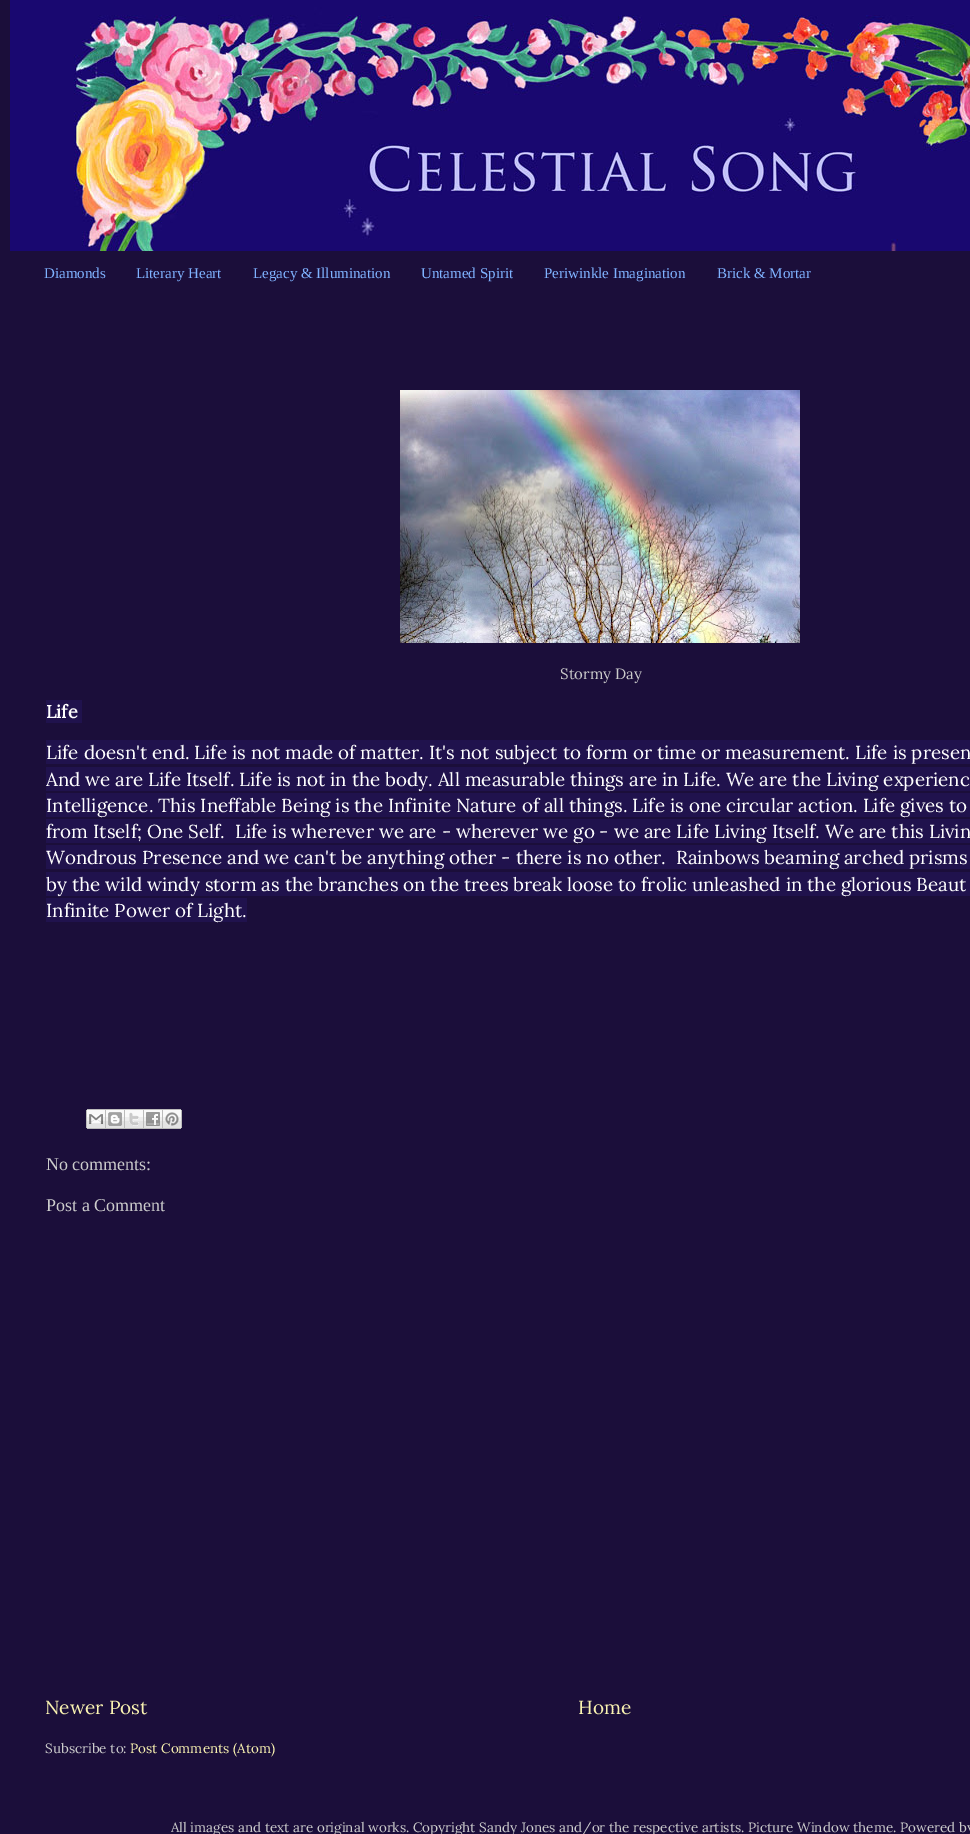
%!PS-Adobe-3.0
%%BoundingBox: 0 0 970 1834
%%LanguageLevel: 3
%%Pages: 1
%%EndComments
%%BeginProlog
/setink { 3 { 255 div 3 1 roll } repeat setrgbcolor } def
/usefont { [ exch dup neg 0 0 3 -1 roll 0 0 ] selectfont } def
/drawtext { setink usefont moveto show } def
/fillbox { setink rectfill } def
/drawimage { 5 dict begin { /h /w /y /x /name } { exch def } forall
  gsave x y translate w h scale
  w h 8 [w 0 0 h 0 0] name (r) file false 3 colorimage grestore end } def
%%EndProlog
%%BeginSetup
<< /PageSize [970 1834] >> setpagedevice
%%EndSetup
%%Page: 1 1
0 1834 translate 1 -1 scale
4 setmiterlimit
0 0 970 1834 27 14 58 fillbox
(assets/img1.rgb) 10 0 960 251 drawimage
(Diamonds) 44 278 /LiberationSerif-Regular 15 127 178 255 drawtext
(Literary Heart) 136 278 /LiberationSerif-Regular 15 127 178 255 drawtext
(Legacy & Illumination) 253 278 /LiberationSerif-Regular 15 127 178 255 drawtext
(Untamed Spirit) 421 278 /LiberationSerif-Regular 15 127 178 255 drawtext
(Periwinkle Imagination) 544 278 /LiberationSerif-Regular 15 127 178 255 drawtext
(Brick & Mortar) 717 278 /LiberationSerif-Regular 15 127 178 255 drawtext
(assets/img2.rgb) 400 390 400 253 drawimage
(Stormy Day) 560 679 /Lora-Regular 15 204 204 204 drawtext
46 700 36 23 32 18 77 fillbox
(Life) 46 718 /Lora-Bold 18 255 255 255 drawtext
46 740 924 24 32 18 77 fillbox
(Life doesn't end. Life is not made of matter. It's not subject to form or time or measurement. Life is presen) 46 759 /Lora-Regular 18.75 255 255 255 drawtext
46 767 924 24 32 18 77 fillbox
(And we are Life Itself. Life is not in the body. All measurable things are in Life. We are the Living experienc) 46 786 /Lora-Regular 18.75 255 255 255 drawtext
46 793 924 24 32 18 77 fillbox
(Intelligence. This Ineffable Being is the Infinite Nature of all things. Life is one circular action. Life gives to) 46 812 /Lora-Regular 18.75 255 255 255 drawtext
46 819 924 24 32 18 77 fillbox
(from Itself; One Self.  Life is wherever we are - wherever we go - we are Life Living Itself. We are this Livin) 46 838 /Lora-Regular 18.75 255 255 255 drawtext
46 845 924 24 32 18 77 fillbox
(Wondrous Presence and we can't be anything other - there is no other.  Rainbows beaming arched prisms) 46 864 /Lora-Regular 18.75 255 255 255 drawtext
46 872 924 24 32 18 77 fillbox
(by the wild windy storm as the branches on the trees break loose to frolic unleashed in the glorious Beaut) 46 891 /Lora-Regular 18.75 255 255 255 drawtext
46 898 201 24 32 18 77 fillbox
(Infinite Power of Light.) 46 917 /Lora-Regular 18.75 255 255 255 drawtext
(assets/img3.rgb) 86 1109 20 20 drawimage
(assets/img4.rgb) 106 1109 19 20 drawimage
(assets/img5.rgb) 125 1109 19 20 drawimage
(assets/img6.rgb) 144 1109 19 20 drawimage
(assets/img7.rgb) 163 1109 19 20 drawimage
(No comments:) 46 1170 /LiberationSerif-Regular 18 204 204 204 drawtext
(Post a Comment) 46 1211 /LiberationSerif-Regular 18 204 204 204 drawtext
(Newer Post) 45 1714 /Lora-Regular 19 250 243 177 drawtext
(Home) 578 1714 /Lora-Regular 19 250 243 177 drawtext
(Subscribe to:) 45 1753 /Lora-Regular 13.5 204 204 204 drawtext
(Post Comments \(Atom\)) 130 1753 /Lora-Regular 13.5 250 243 177 drawtext
(All images and text are original works. Copyright Sandy Jones and/or the respective artists. Picture Window theme. Powered by) 171 1832 /Lora-Regular 13.5 204 204 204 drawtext
showpage
%%EOF
